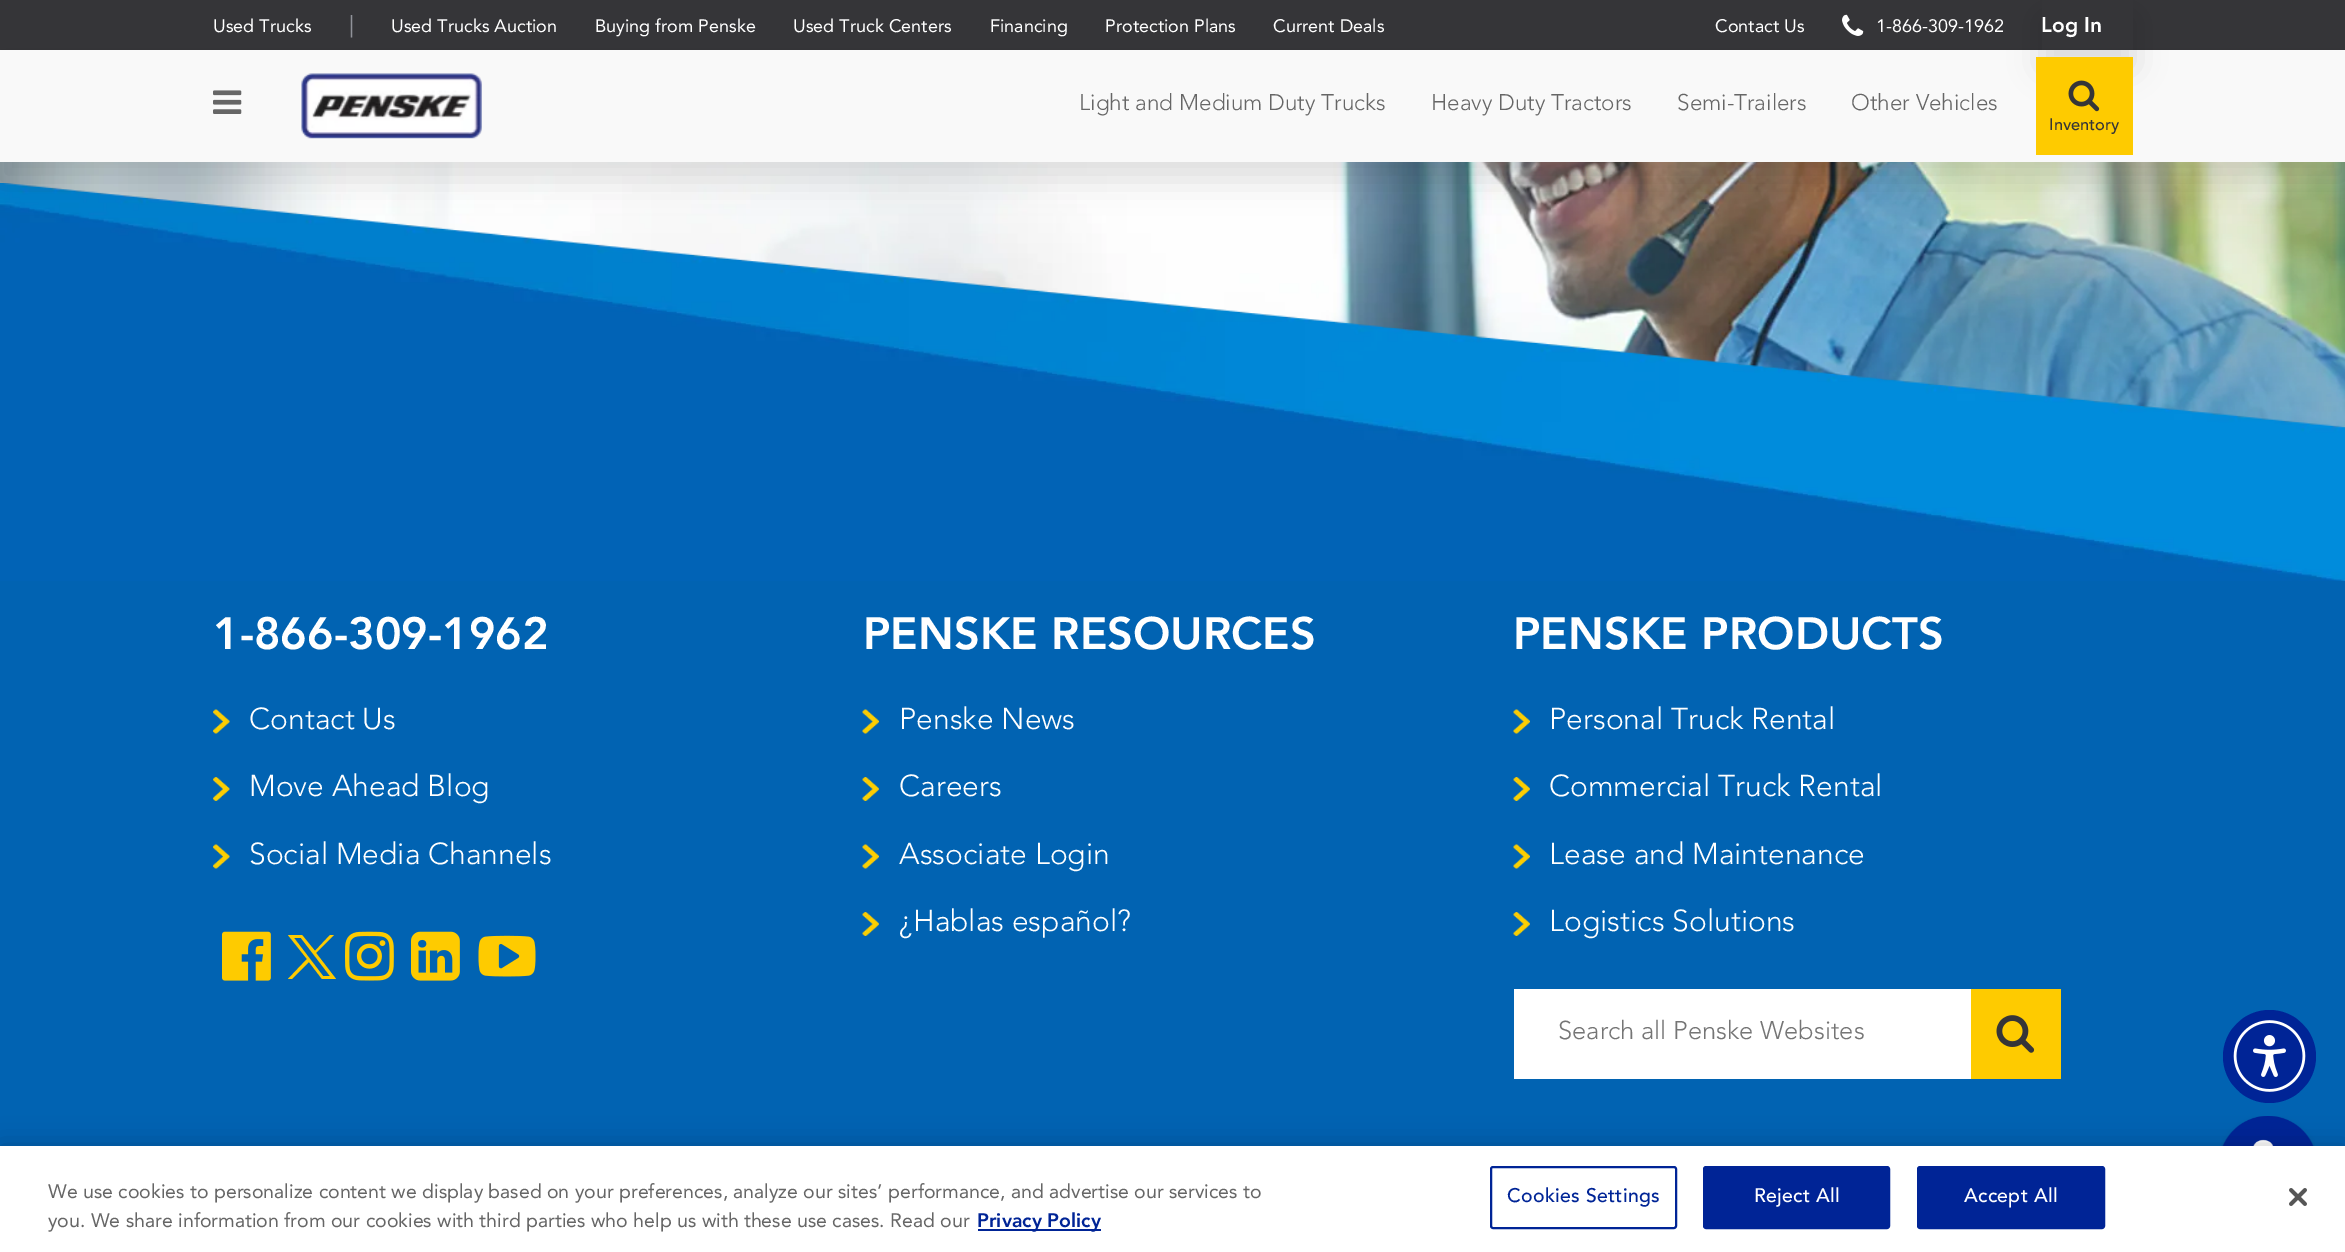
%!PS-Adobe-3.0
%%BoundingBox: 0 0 2345 1252
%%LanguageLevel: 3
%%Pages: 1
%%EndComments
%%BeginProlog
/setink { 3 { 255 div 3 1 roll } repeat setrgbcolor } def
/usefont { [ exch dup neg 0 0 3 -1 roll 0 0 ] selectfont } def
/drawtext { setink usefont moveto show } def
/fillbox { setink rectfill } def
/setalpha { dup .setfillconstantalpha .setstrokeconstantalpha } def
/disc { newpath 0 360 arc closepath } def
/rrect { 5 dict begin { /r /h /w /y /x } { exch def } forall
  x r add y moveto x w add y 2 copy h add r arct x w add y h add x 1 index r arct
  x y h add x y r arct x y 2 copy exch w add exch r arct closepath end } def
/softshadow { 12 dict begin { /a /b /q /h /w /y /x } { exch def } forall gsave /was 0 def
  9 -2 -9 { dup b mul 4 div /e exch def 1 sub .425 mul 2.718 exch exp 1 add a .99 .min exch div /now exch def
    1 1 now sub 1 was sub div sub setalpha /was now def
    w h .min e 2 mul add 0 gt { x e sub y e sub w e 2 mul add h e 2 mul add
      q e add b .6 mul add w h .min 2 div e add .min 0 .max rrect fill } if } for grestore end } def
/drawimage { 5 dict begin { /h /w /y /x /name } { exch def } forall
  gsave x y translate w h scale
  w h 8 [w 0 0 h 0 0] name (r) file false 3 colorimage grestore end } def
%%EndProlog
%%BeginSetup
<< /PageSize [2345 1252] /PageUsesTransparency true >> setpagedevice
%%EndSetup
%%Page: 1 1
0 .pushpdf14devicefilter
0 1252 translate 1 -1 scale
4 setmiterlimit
0 0 2345 1252 255 255 255 fillbox
0 0 2345 50 53 53 56 fillbox
(assets/img5.rgb) 0 162 2345 267 drawimage
(assets/img6.rgb) 0 183 2345 398 drawimage
3 3 3 setink
0 68 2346 112 0 16 0.13 softshadow
(Used Trucks) 213 32 /Avenir-Regular 18 255 255 255 drawtext
(|) 349 32 /Avenir-Regular 22.5 144 146 153 drawtext
(Used Trucks Auction) 391 32 /Avenir-Regular 18 255 255 255 drawtext
(Buying from Penske) 595 32 /Avenir-Regular 18 255 255 255 drawtext
(Used Truck Centers) 793 32 /Avenir-Regular 18 255 255 255 drawtext
(Financing) 990 32 /Avenir-Regular 18 255 255 255 drawtext
(Protection Plans) 1105 32 /Avenir-Regular 18 255 255 255 drawtext
(Current Deals) 1273 32 /Avenir-Regular 18 255 255 255 drawtext
(Contact Us) 1715 32 /Avenir-Regular 18 255 255 255 drawtext
(assets/img1.rgb) 1842 14 22 22 drawimage
(1-866-309-1962) 1876 32 /Avenir-Regular 18 255 255 255 drawtext
0 50 2345 112 249 249 249 fillbox
gsave
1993 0 moveto 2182 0 lineto 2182 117 lineto 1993 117 lineto closepath 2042 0 moveto 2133 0 lineto 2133 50 lineto 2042 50 lineto closepath eoclip newpath
3 3 3 setink
2042 18 91 50 0 16 0.13 softshadow
grestore
(Log In) 2041 32 /Avenir-Black 21 255 255 255 drawtext
(assets/img2.rgb) 213 90 29 24 drawimage
(assets/img3.rgb) 301 73 181 66 drawimage
(Light and Medium Duty Trucks) 1079 110 /Avenir-Light 22.5 102 102 102 drawtext
(Heavy Duty Tractors) 1431 110 /Avenir-Light 22.5 102 102 102 drawtext
(Semi-Trailers) 1677 110 /Avenir-Light 22.5 102 102 102 drawtext
(Other Vehicles) 1851 110 /Avenir-Light 22.5 102 102 102 drawtext
2036 57 97 98 254 203 0 fillbox
(assets/img4.rgb) 2068 80 32 32 drawimage
(Inventory) 2049 130 /Avenir-Medium 16.5 53 53 56 drawtext
0 581 2345 565 1 99 178 fillbox
(1-866-309-1962) 213 649 /Avenir-Black 45 255 255 255 drawtext
(assets/img7.rgb) 213 709 17 25 drawimage
(Contact Us) 249 729 /Avenir-Light 30 255 255 255 drawtext
(assets/img8.rgb) 213 777 17 24 drawimage
(Move Ahead Blog) 249 796 /Avenir-Light 30 255 255 255 drawtext
(assets/img9.rgb) 213 844 17 25 drawimage
(Social Media Channels) 249 864 /Avenir-Light 30 255 255 255 drawtext
(assets/img10.rgb) 222 931 49 50 drawimage
254 203 0 setink
288 935 moveto 307 959 lineto 288 979 lineto 292 979 lineto 309 962 lineto 322 979 lineto 336 979 lineto 316 953 lineto 334 935 lineto 330 935 lineto 315 951 lineto 302 935 lineto closepath 294 938 moveto 301 938 lineto 330 976 lineto 323 976 lineto closepath fill
(assets/img11.rgb) 345 931 49 50 drawimage
(assets/img12.rgb) 411 931 49 50 drawimage
(assets/img13.rgb) 478 935 58 42 drawimage
(PENSKE RESOURCES) 863 649 /Avenir-Black 45 255 255 255 drawtext
(assets/img14.rgb) 862 709 17 25 drawimage
(Penske News) 899 729 /Avenir-Light 30 255 255 255 drawtext
(assets/img15.rgb) 862 777 17 24 drawimage
(Careers) 899 796 /Avenir-Light 30 255 255 255 drawtext
(assets/img16.rgb) 862 844 17 25 drawimage
(Associate Login) 899 864 /Avenir-Light 30 255 255 255 drawtext
(assets/img15.rgb) 862 912 17 24 drawimage
(¿Hablas español?) 899 931 /Avenir-Light 30 255 255 255 drawtext
(PENSKE PRODUCTS) 1513 649 /Avenir-Black 45 255 255 255 drawtext
(assets/img14.rgb) 1513 709 17 25 drawimage
(Personal Truck Rental) 1549 729 /Avenir-Light 30 255 255 255 drawtext
(assets/img15.rgb) 1513 777 17 24 drawimage
(Commercial Truck Rental) 1549 796 /Avenir-Light 30 255 255 255 drawtext
(assets/img16.rgb) 1513 844 17 25 drawimage
(Lease and Maintenance) 1549 864 /Avenir-Light 30 255 255 255 drawtext
(assets/img15.rgb) 1513 912 17 24 drawimage
(Logistics Solutions) 1549 931 /Avenir-Light 30 255 255 255 drawtext
1514 989 457 90 255 255 255 fillbox
(Search all Penske Websites) 1558 1039 /Avenir-Light 25.5 117 117 117 drawtext
1971 989 90 90 254 203 0 fillbox
(assets/img17.rgb) 1996 1015 39 38 drawimage
0 36 150 setink
2269.5 1056.5 46.5 disc fill
(assets/img18.rgb) 2233 1020 73 72 drawimage
(assets/img19.rgb) 2221 1116 94 30 drawimage
0 0 0 setink
0 1146 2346 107 0 13.5 0.2 softshadow
0 1146 2345 106 255 255 255 fillbox
(We use cookies to personalize content we display based on your preferences, analyze our sites’ performance, and advertise our services to) 48 1198 /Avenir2-Regular 19.5 102 102 102 drawtext
(you. We share information from our cookies with third parties who help us with these use cases. Read our) 48 1227 /Avenir2-Regular 19.5 102 102 102 drawtext
978 1229 123 2 0 36 150 fillbox
(Privacy Policy) 977 1227 /Avenir-Black 19.5 0 36 150 drawtext
2 setlinewidth
1491 1167 185 61 2 rrect stroke
/Avenir2-Medium 19.5 usefont
1507 1202 moveto 0.25 0 (Cookies Settings) ashow
1704 1167 185 61 2 rrect gsave fill grestore
stroke
255 255 255 setink
1754 1202 moveto 0.25 0 (Reject All) ashow
0 36 150 setink
1918 1167 186 61 2 rrect gsave fill grestore
stroke
255 255 255 setink
1964 1202 moveto 0.25 0 (Accept All) ashow
(assets/img20.rgb) 2289 1188 18 18 drawimage
.poppdf14devicefilter showpage
%%EOF
